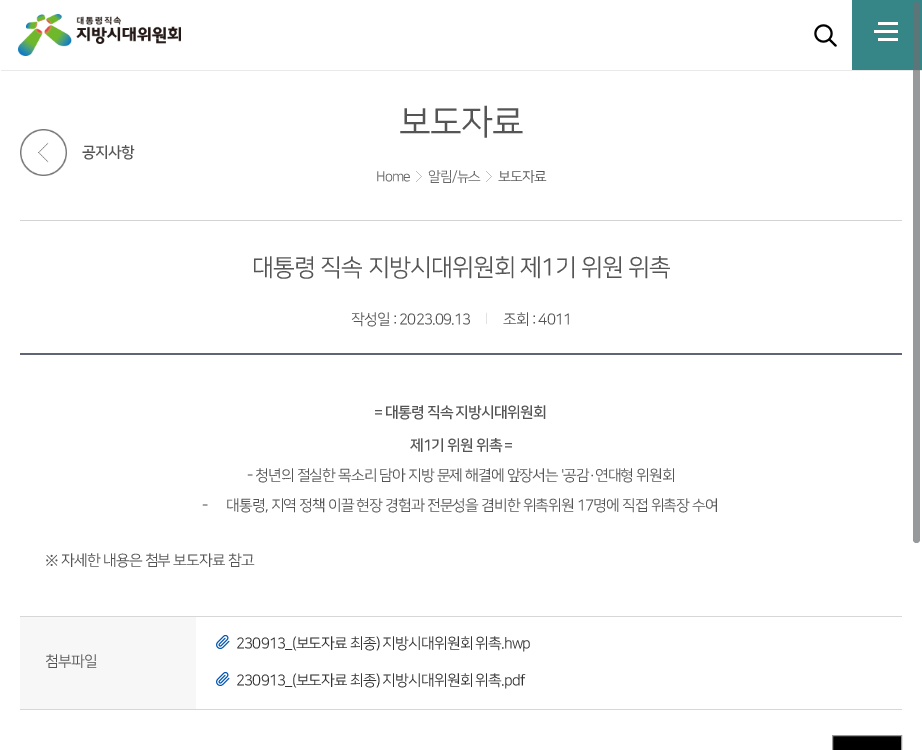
%!PS-Adobe-3.0
%%BoundingBox: 0 0 922 750
%%LanguageLevel: 3
%%Pages: 1
%%EndComments
%%BeginProlog
/setink { 3 { 255 div 3 1 roll } repeat setrgbcolor } def
/usefont { [ exch dup neg 0 0 3 -1 roll 0 0 ] selectfont } def
/fillbox { setink rectfill } def
/setalpha { dup .setfillconstantalpha .setstrokeconstantalpha } def
/rrect { 5 dict begin { /r /h /w /y /x } { exch def } forall
  x r add y moveto x w add y 2 copy h add r arct x w add y h add x 1 index r arct
  x y h add x y r arct x y 2 copy exch w add exch r arct closepath end } def
/softshadow { 12 dict begin { /a /b /q /h /w /y /x } { exch def } forall gsave /was 0 def
  9 -2 -9 { dup b mul 4 div /e exch def 1 sub .425 mul 2.718 exch exp 1 add a .99 .min exch div /now exch def
    1 1 now sub 1 was sub div sub setalpha /was now def
    w h .min e 2 mul add 0 gt { x e sub y e sub w e 2 mul add h e 2 mul add
      q e add b .6 mul add w h .min 2 div e add .min 0 .max rrect fill } if } for grestore end } def
/drawimage { 5 dict begin { /h /w /y /x /name } { exch def } forall
  gsave x y translate w h scale
  w h 8 [w 0 0 h 0 0] name (r) file false 3 colorimage grestore end } def
%%EndProlog
%%BeginSetup
<< /PageSize [922 750] /PageUsesTransparency true >> setpagedevice
%%EndSetup
%%Page: 1 1
0 .pushpdf14devicefilter
0 750 translate 1 -1 scale
4 setmiterlimit
0 0 922 750 255 255 255 fillbox
gsave
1 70 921 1 rectclip
0 0 0 setink
1 1 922 70 0 0.5 0.1 softshadow
grestore
(assets/img1.rgb) 18 14 163 42 drawimage
(assets/img2.rgb) 814 24 23 23 drawimage
852 0 70 70 55 134 135 fillbox
(assets/img3.rgb) 874 22 24 19 drawimage
20 220 882 1 212 212 212 fillbox
/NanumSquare-Regular 35 usefont
85 85 85 setink
399 133 moveto -0.8 0 (보도자료) ashow
(assets/img4.rgb) 20 129 47 47 drawimage
/NanumSquare-Bold 15 usefont
82 157 moveto -0.8 0 (공지사항) ashow
/NanumSquare-Regular 14 usefont
102 102 102 setink
376 181 moveto -0.8 0 (Home) ashow
(assets/img5.rgb) 416 171 6 11 drawimage
428 181 moveto -0.8 0 (알림/뉴스) ashow
(assets/img5.rgb) 486 171 6 11 drawimage
85 85 85 setink
498 181 moveto -0.8 0 (보도자료) ashow
20 709 882 1 215 215 215 fillbox
20 353 882 2 95 101 119 fillbox
/NanumSquare-Regular 24 usefont
85 85 85 setink
252 275 moveto -0.8 0 (대통령 직속 지방시대위원회 제1기 위원 위촉) ashow
/NanumSquare-Regular 15 usefont
351 324 moveto -0.8 0 (작성일 : 2023.09.13) ashow
/NanumSquare-Regular 12 usefont
215 215 215 setink
485 322 moveto -0.8 0 (|) ashow
/NanumSquare-Regular 15 usefont
85 85 85 setink
503 324 moveto -0.8 0 (조회 : 4011) ashow
/NanumSquare-Bold 15 usefont
374 417 moveto -0.8 0 (= 대통령 직속 지방시대위원회) ashow
410 450 moveto -0.8 0 (제1기 위원 위촉 =) ashow
/NanumSquare-Regular 15 usefont
247 480 moveto -0.1 0 32 -0.8 0 (- 청년의 절실한 목소리 담아 지방 문제 해결에 앞장서는 '공감·연대형 위원회) awidthshow
202 510 moveto -0.8 0 (- 尹 대통령, 지역 정책 이끌 현장 경험과 전문성을 겸비한 위촉위원 17명에 직접 위촉장 수여) ashow
45 565 moveto 0.25 0 32 -0.8 0 (※ 자세한 내용은 첨부 보도자료 참고) awidthshow
20 616 882 1 215 215 215 fillbox
20 617 176 92 247 247 247 fillbox
85 85 85 setink
45 666 moveto -0.8 0 (첨부파일) ashow
(assets/img6.rgb) 216 635 14 14 drawimage
51 51 51 setink
236 648 moveto -0.8 0 (230913_\(보도자료 최종\) 지방시대위원회 위촉.hwp) ashow
(assets/img6.rgb) 216 672 14 14 drawimage
236 685 moveto -0.8 0 (230913_\(보도자료 최종\) 지방시대위원회 위촉.pdf) ashow
0 0 0 setink
832.5 735.5 moveto 901.5 735.5 lineto 901.5 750.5 lineto 832.5 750.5 lineto closepath gsave fill grestore
154 154 154 setink
stroke
0.7 setalpha
108 110 113 setink
913 2 7 541 3.5 rrect fill
.poppdf14devicefilter showpage
%%EOF
